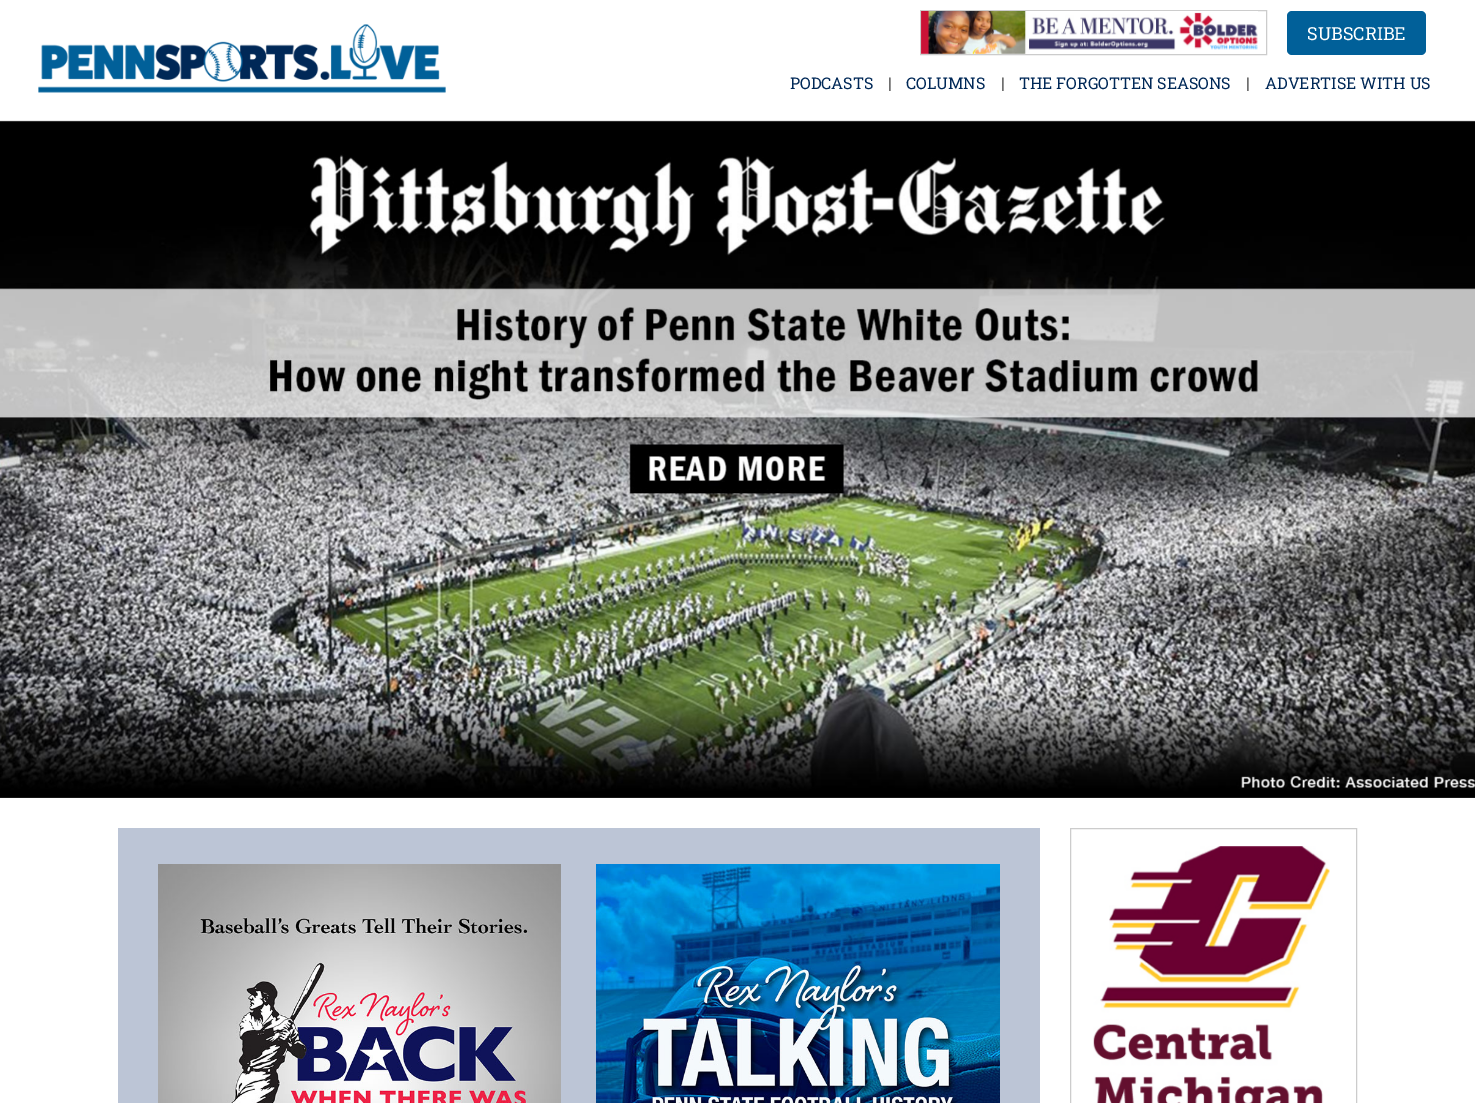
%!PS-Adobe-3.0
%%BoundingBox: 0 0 1475 1103
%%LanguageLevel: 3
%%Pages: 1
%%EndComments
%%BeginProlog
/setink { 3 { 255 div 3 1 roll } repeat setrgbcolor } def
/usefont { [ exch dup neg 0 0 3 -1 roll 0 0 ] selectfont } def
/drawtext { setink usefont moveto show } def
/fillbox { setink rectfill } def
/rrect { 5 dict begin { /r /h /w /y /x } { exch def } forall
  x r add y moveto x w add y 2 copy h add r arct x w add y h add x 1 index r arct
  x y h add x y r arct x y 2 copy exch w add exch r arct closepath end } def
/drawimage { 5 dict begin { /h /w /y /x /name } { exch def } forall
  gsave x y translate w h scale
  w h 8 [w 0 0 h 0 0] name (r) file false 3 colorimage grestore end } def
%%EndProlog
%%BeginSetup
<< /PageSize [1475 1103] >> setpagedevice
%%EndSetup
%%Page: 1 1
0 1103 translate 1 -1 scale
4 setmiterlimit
0 0 1475 1103 255 255 255 fillbox
(assets/img1.rgb) 38 24 408 69 drawimage
204 204 204 setink
920.5 10.5 346 44 rectstroke
(assets/img2.rgb) 921 11 337 43 drawimage
1 96 153 setink
1287 11 139 44 5 rrect fill
(SUBSCRIBE) 1307 40 /RobotoSlab-Regular 18 255 255 255 drawtext
(PODCASTS) 790 89 /RobotoSlab-Regular 16 0 40 87 drawtext
(|) 888 89 /RobotoSlab-Regular 16 59 59 59 drawtext
(COLUMNS) 906 89 /RobotoSlab-Regular 16 0 40 87 drawtext
(|) 1001 89 /RobotoSlab-Regular 16 59 59 59 drawtext
(THE FORGOTTEN SEASONS) 1019 89 /RobotoSlab-Regular 16 0 40 87 drawtext
(|) 1246 89 /RobotoSlab-Regular 16 59 59 59 drawtext
(ADVERTISE WITH US) 1265 89 /RobotoSlab-Regular 16 0 40 87 drawtext
(assets/img3.rgb) 0 120 1475 678 drawimage
118 828 922 275 188 197 214 fillbox
(assets/img4.rgb) 158 864 403 239 drawimage
(assets/img5.rgb) 596 864 404 239 drawimage
204 204 204 setink
1070.5 828.5 286 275 rectstroke
(assets/img6.rgb) 1093 846 237 257 drawimage
showpage
%%EOF
